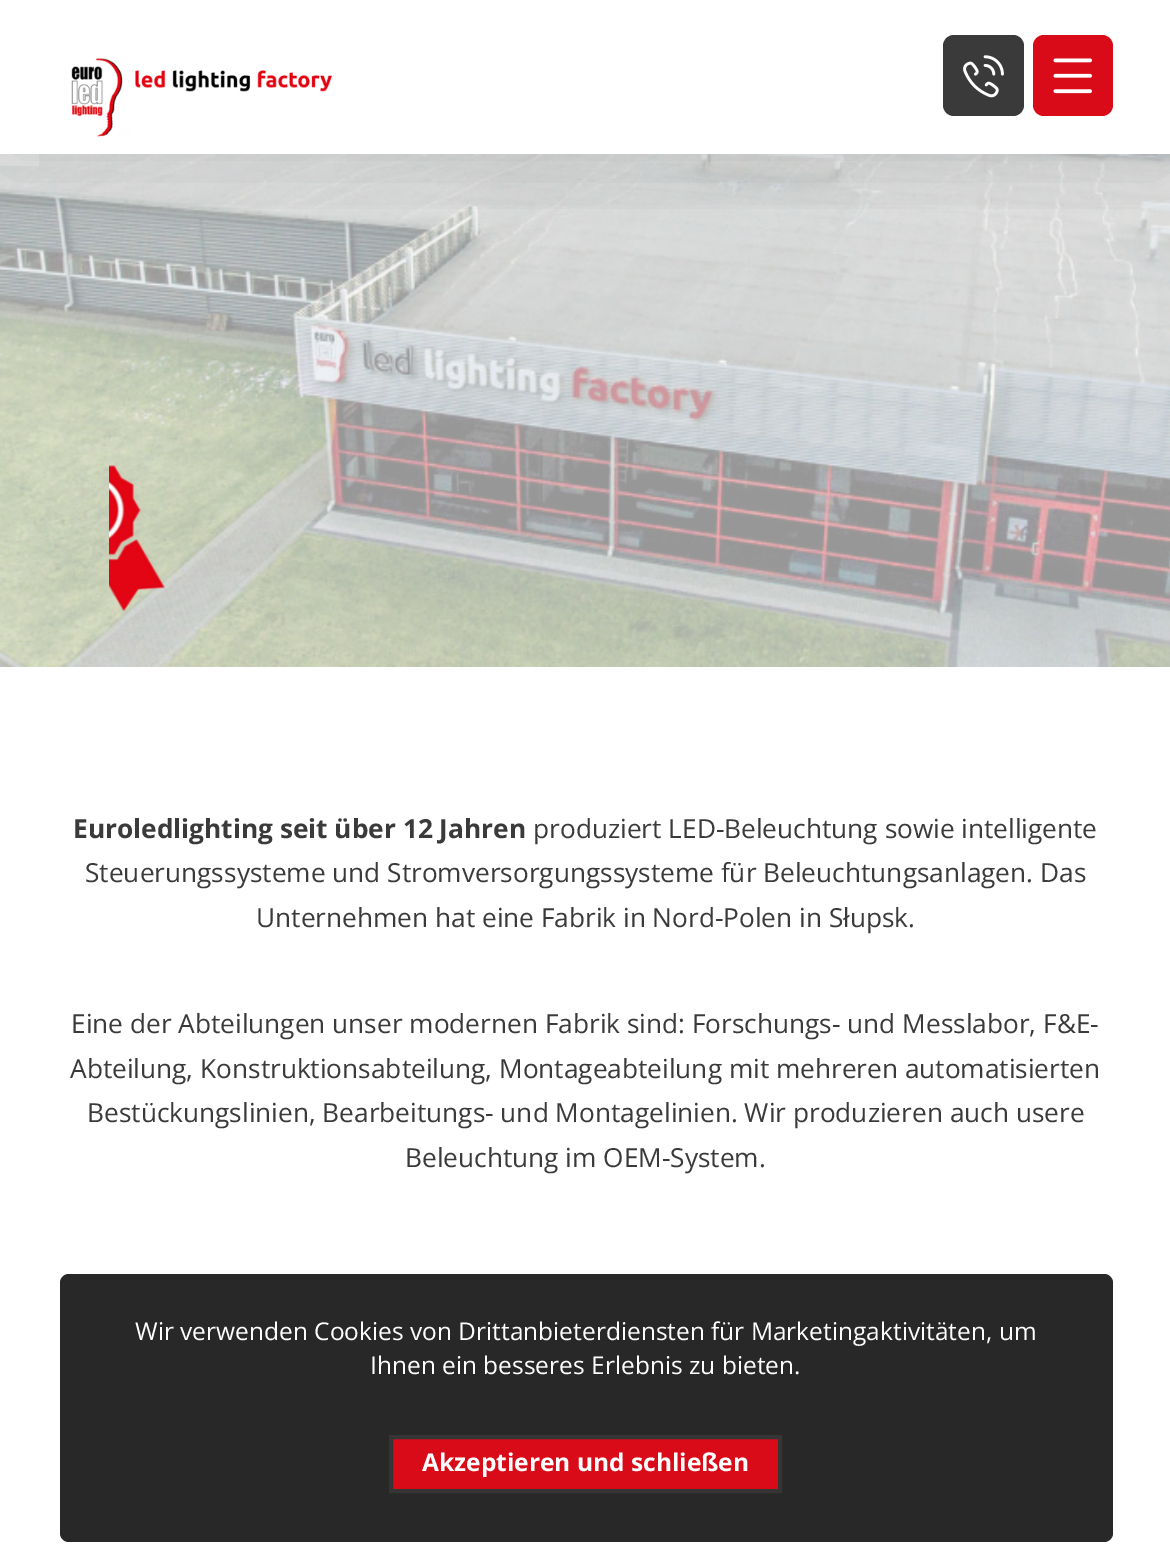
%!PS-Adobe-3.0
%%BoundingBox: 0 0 1170 1567
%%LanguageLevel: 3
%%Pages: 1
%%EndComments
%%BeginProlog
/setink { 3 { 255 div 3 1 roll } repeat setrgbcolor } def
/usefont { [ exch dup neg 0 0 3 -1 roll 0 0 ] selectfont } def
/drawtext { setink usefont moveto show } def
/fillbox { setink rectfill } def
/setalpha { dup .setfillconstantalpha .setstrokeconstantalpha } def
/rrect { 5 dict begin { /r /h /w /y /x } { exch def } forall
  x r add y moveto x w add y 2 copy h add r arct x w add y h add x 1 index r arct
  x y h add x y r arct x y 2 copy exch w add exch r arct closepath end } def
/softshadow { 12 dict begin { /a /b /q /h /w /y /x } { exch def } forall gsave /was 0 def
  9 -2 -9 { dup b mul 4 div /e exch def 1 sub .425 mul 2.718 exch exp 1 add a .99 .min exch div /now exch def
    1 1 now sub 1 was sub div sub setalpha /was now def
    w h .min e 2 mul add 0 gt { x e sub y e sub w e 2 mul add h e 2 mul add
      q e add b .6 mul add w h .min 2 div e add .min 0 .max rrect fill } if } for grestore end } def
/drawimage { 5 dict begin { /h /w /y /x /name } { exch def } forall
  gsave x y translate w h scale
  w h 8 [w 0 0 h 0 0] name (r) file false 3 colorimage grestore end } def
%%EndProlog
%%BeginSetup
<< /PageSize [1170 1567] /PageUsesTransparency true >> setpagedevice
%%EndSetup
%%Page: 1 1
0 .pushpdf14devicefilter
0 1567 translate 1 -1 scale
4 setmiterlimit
0 0 1170 1567 255 255 255 fillbox
(assets/img4.rgb) 0 154 1170 513 drawimage
0.25 setalpha
0 154 39 12 255 255 255 fillbox
gsave
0 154 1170 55 rectclip
1 setalpha
0 0 0 setink
0 18 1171 154 0 44 0.1 softshadow
grestore
1 setalpha
(assets/img1.rgb) 71 58 262 79 drawimage
58 58 58 setink
943 35 81 81 11 rrect fill
(assets/img2.rgb) 963 55 41 43 drawimage
217 11 24 setink
1033 35 80 81 11 rrect fill
(assets/img3.rgb) 1053 58 39 36 drawimage
(assets/img5.rgb) 109 465 57 147 drawimage
(Euroledlighting seit über 12 Jahren) 73 838 /OpenSans-Bold 26.25 58 58 58 drawtext
(produziert LED-Beleuchtung sowie intelligente) 533 838 /OpenSans-Regular 26.25 58 58 58 drawtext
(Steuerungssysteme und Stromversorgungssysteme für Beleuchtungsanlagen. Das) 85 882 /OpenSans-Regular 26.25 58 58 58 drawtext
(Unternehmen hat eine Fabrik in Nord-Polen in Słupsk.) 256 927 /OpenSans-Regular 26.25 58 58 58 drawtext
(Eine der Abteilungen unser modernen Fabrik sind: Forschungs- und Messlabor, F&E-) 71 1033 /OpenSans-Regular 26.25 58 58 58 drawtext
(Abteilung, Konstruktionsabteilung, Montageabteilung mit mehreren automatisierten) 70 1078 /OpenSans-Regular 26.25 58 58 58 drawtext
(Bestückungslinien, Bearbeitungs- und Montagelinien. Wir produzieren auch usere) 87 1122 /OpenSans-Regular 26.25 58 58 58 drawtext
(Beleuchtung im OEM-System.) 405 1167 /OpenSans-Regular 26.25 58 58 58 drawtext
(assets/img6.rgb) 58 1241 1055 326 drawimage
40 40 40 setink
60 1274 1053 268 9 rrect fill
(Wir verwenden Cookies von Drittanbieterdiensten für Marketingaktivitäten, um) 135 1340 /OpenSans-Regular 24.5 255 255 255 drawtext
(Ihnen ein besseres Erlebnis zu bieten.) 370 1374 /OpenSans-Regular 24.5 255 255 255 drawtext
217 11 24 setink
391 1437 moveto 780 1437 lineto 780 1491 lineto 391 1491 lineto closepath gsave fill grestore
53 53 53 setink
4 setlinewidth
stroke
(Akzeptieren und schließen) 422 1471 /OpenSans-Bold 24.5 255 255 255 drawtext
.poppdf14devicefilter showpage
%%EOF
